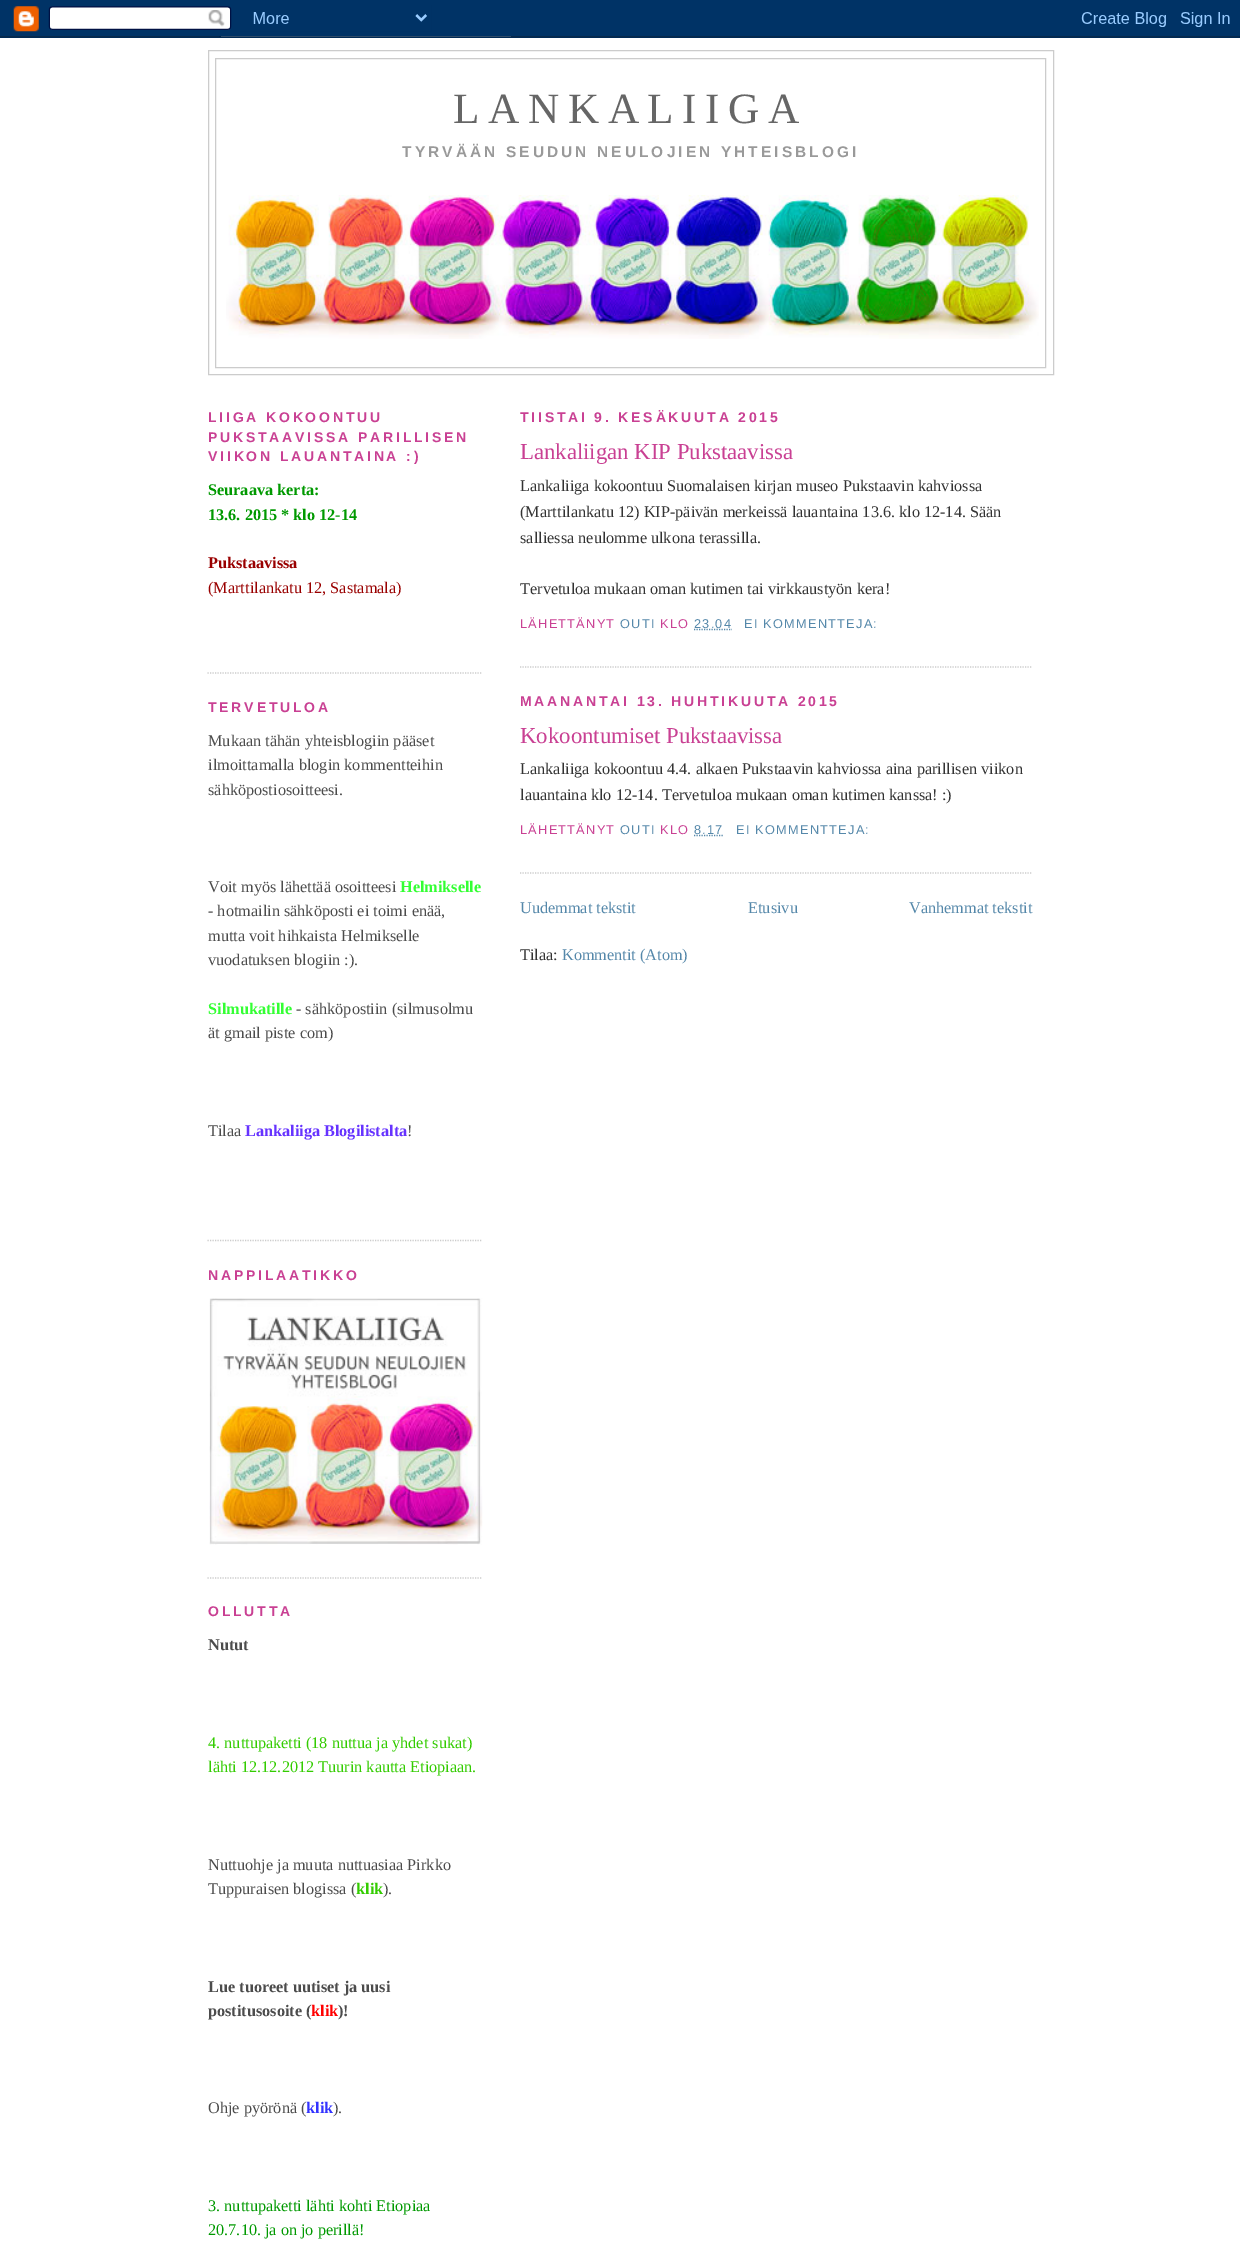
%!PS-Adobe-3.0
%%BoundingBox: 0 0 1240 2267
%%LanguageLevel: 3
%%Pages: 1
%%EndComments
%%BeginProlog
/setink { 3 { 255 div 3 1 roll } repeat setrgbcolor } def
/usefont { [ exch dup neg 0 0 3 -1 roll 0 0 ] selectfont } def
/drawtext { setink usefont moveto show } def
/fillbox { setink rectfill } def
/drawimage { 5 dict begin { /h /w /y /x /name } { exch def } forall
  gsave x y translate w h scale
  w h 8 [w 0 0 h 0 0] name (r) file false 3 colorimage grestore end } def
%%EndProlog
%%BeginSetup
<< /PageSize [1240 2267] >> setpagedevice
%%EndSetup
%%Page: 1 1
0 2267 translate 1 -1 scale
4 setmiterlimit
0 0 1240 2267 255 255 255 fillbox
(assets/img1.rgb) 0 0 1240 38 drawimage
204 204 204 setink
208.5 50.5 845 324 rectstroke
215.5 58.5 830 309 rectstroke
(assets/img2.rgb) 226 195 813 144 drawimage
/LiberationSerif-Regular 43.25 usefont
102 102 102 setink
453 123 moveto 8.6 0 (LANKALIIGA) ashow
/LiberationSans-Bold 15.45 usefont
153 153 153 setink
402 157 moveto 3.1 0 (TYRVÄÄN SEUDUN NEULOJIEN YHTEISBLOGI) ashow
204 204 204 setink
1.2 setlinewidth
[1.25 1.25] 0 setdash
207.5 673 moveto 482.5 673 lineto stroke
/LiberationSans-Bold 14 usefont
201 64 147 setink
208 422 moveto 2.8 0 (LIIGA KOKOONTUU) ashow
208 442 moveto 2.8 0 (PUKSTAAVISSA PARILLISEN) ashow
208 461 moveto 2.8 0 (VIIKON LAUANTAINA :\)) ashow
(Seuraava kerta:) 208 495 /LiberationSerif-Bold 16.25 0 153 0 drawtext
(13.6. 2015 * klo 12-14) 208 520 /LiberationSerif-Bold 16.25 0 153 0 drawtext
(Pukstaavissa) 208 568 /LiberationSerif-Bold 16.25 153 0 0 drawtext
(\(Marttilankatu 12, Sastamala\)) 208 593 /LiberationSerif-Regular 16.25 153 0 0 drawtext
204 204 204 setink
207.5 1240.5 moveto 482.5 1240.5 lineto stroke
/LiberationSans-Bold 14 usefont
201 64 147 setink
208 712 moveto 2.8 0 (TERVETULOA) ashow
(Mukaan tähän yhteisblogiin pääset) 208 746 /LiberationSerif-Regular 16.25 76 76 76 drawtext
(ilmoittamalla blogin kommentteihin) 208 770 /LiberationSerif-Regular 16.25 76 76 76 drawtext
(sähköpostiosoitteesi.) 208 795 /LiberationSerif-Regular 16.25 76 76 76 drawtext
(Voit myös lähettää osoitteesi) 208 892 /LiberationSerif-Regular 16.25 76 76 76 drawtext
(Helmikselle) 400 892 /LiberationSerif-Bold 16.25 51 255 51 drawtext
(- hotmailin sähköposti ei toimi enää,) 208 916 /LiberationSerif-Regular 16.25 76 76 76 drawtext
(mutta voit hihkaista Helmikselle) 208 941 /LiberationSerif-Regular 16.25 76 76 76 drawtext
(vuodatuksen blogiin :\).) 208 965 /LiberationSerif-Regular 16.25 76 76 76 drawtext
(Silmukatille) 208 1014 /LiberationSerif-Bold 16.25 51 255 51 drawtext
(- sähköpostiin \(silmusolmu) 296 1014 /LiberationSerif-Regular 16.25 76 76 76 drawtext
(ät gmail piste com\)) 208 1038 /LiberationSerif-Regular 16.25 76 76 76 drawtext
gsave
208 388 275 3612 rectclip
(Tilaa) 208 1136 /LiberationSerif-Regular 16.25 76 76 76 drawtext
grestore
(Lankaliiga Blogilistalta) 245 1136 /LiberationSerif-Bold 16.25 102 51 255 drawtext
(!) 407 1136 /LiberationSerif-Regular 16.25 76 76 76 drawtext
204 204 204 setink
207.5 1578 moveto 482.5 1578 lineto stroke
/LiberationSans-Bold 14 usefont
201 64 147 setink
208 1280 moveto 2.8 0 (NAPPILAATIKKO) ashow
(assets/img3.rgb) 209 1298 274 247 drawimage
208 1616 moveto 2.8 0 (OLLUTTA) ashow
(Nutut) 208 1650 /LiberationSerif-Bold 16.25 76 76 76 drawtext
(4. nuttupaketti \(18 nuttua ja yhdet sukat\)) 208 1748 /LiberationSerif-Regular 16.25 51 204 0 drawtext
(lähti 12.12.2012 Tuurin kautta Etiopiaan.) 208 1772 /LiberationSerif-Regular 16.25 51 204 0 drawtext
(Nuttuohje ja muuta nuttuasiaa Pirkko) 208 1870 /LiberationSerif-Regular 16.25 76 76 76 drawtext
gsave
208 388 275 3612 rectclip
(Tuppuraisen blogissa \() 208 1894 /LiberationSerif-Regular 16.25 76 76 76 drawtext
grestore
(klik) 356 1894 /LiberationSerif-Bold 16.25 51 204 0 drawtext
(\).) 383 1894 /LiberationSerif-Regular 16.25 76 76 76 drawtext
(Lue tuoreet uutiset ja uusi) 208 1992 /LiberationSerif-Bold 16.25 76 76 76 drawtext
(postitusosoite \() 208 2016 /LiberationSerif-Bold 16.25 76 76 76 drawtext
(klik) 311 2016 /LiberationSerif-Bold 16.25 255 0 0 drawtext
(\)!) 338 2016 /LiberationSerif-Bold 16.25 76 76 76 drawtext
(Ohje pyörönä \() 208 2113 /LiberationSerif-Regular 16.25 76 76 76 drawtext
(klik) 306 2113 /LiberationSerif-Bold 16.25 51 51 255 drawtext
(\).) 333 2113 /LiberationSerif-Regular 16.25 76 76 76 drawtext
(3. nuttupaketti lähti kohti Etiopiaa) 208 2211 /LiberationSerif-Regular 16.25 0 153 0 drawtext
(20.7.10. ja on jo perillä!) 208 2235 /LiberationSerif-Regular 16.25 0 153 0 drawtext
/LiberationSans-Bold 14 usefont
201 64 147 setink
520 422 moveto 2.8 0 (TIISTAI 9. KESÄKUUTA 2015) ashow
204 204 204 setink
520 667 moveto 1032.5 667 lineto stroke
(Lankaliigan KIP Pukstaavissa) 520 459 /LiberationSerif-Regular 22.75 201 64 147 drawtext
(Lankaliiga kokoontuu Suomalaisen kirjan museo Pukstaavin kahviossa) 520 491 /LiberationSerif-Regular 16.25 51 51 51 drawtext
(\(Marttilankatu 12\) KIP-päivän merkeissä lauantaina 13.6. klo 12-14. Sään) 520 517 /LiberationSerif-Regular 16.25 51 51 51 drawtext
(salliessa neulomme ulkona terassilla.) 520 543 /LiberationSerif-Regular 16.25 51 51 51 drawtext
(Tervetuloa mukaan oman kutimen tai virkkaustyön kera!) 520 594 /LiberationSerif-Regular 16.25 51 51 51 drawtext
/LiberationSans-Regular 12.75 usefont
201 64 147 setink
520 628 moveto 1.25 0 (LÄHETTÄNYT) ashow
85 136 170 setink
620 628 moveto 1.25 0 (OUTI) ashow
201 64 147 setink
660 628 moveto 1.25 0 (KLO) ashow
85 136 170 setink
694 629.5 moveto 732 629.5 lineto stroke
694 628 moveto 1.25 0 (23.04) ashow
744 628 moveto 1.25 0 (EI KOMMENTTEJA:) ashow
/LiberationSans-Bold 14 usefont
201 64 147 setink
520 706 moveto 2.8 0 (MAANANTAI 13. HUHTIKUUTA 2015) ashow
204 204 204 setink
520 873 moveto 1032.5 873 lineto stroke
(Kokoontumiset Pukstaavissa) 520 743 /LiberationSerif-Regular 22.75 201 64 147 drawtext
(Lankaliiga kokoontuu 4.4. alkaen Pukstaavin kahviossa aina parillisen viikon) 520 774 /LiberationSerif-Regular 16.25 51 51 51 drawtext
(lauantaina klo 12-14. Tervetuloa mukaan oman kutimen kanssa! :\)) 520 800 /LiberationSerif-Regular 16.25 51 51 51 drawtext
/LiberationSans-Regular 12.75 usefont
201 64 147 setink
520 834 moveto 1.25 0 (LÄHETTÄNYT) ashow
85 136 170 setink
620 834 moveto 1.25 0 (OUTI) ashow
201 64 147 setink
660 834 moveto 1.25 0 (KLO) ashow
85 136 170 setink
694 835.5 moveto 723.5 835.5 lineto stroke
694 834 moveto 1.25 0 (8.17) ashow
736 834 moveto 1.25 0 (EI KOMMENTTEJA:) ashow
(Uudemmat tekstit) 520 913 /LiberationSerif-Regular 16.25 85 136 170 drawtext
(Etusivu) 748 913 /LiberationSerif-Regular 16.25 85 136 170 drawtext
(Vanhemmat tekstit) 909 913 /LiberationSerif-Regular 16.25 85 136 170 drawtext
(Tilaa:) 520 960 /LiberationSerif-Regular 16.25 51 51 51 drawtext
(Kommentit \(Atom\)) 562 960 /LiberationSerif-Regular 16.25 85 136 170 drawtext
showpage
%%EOF
